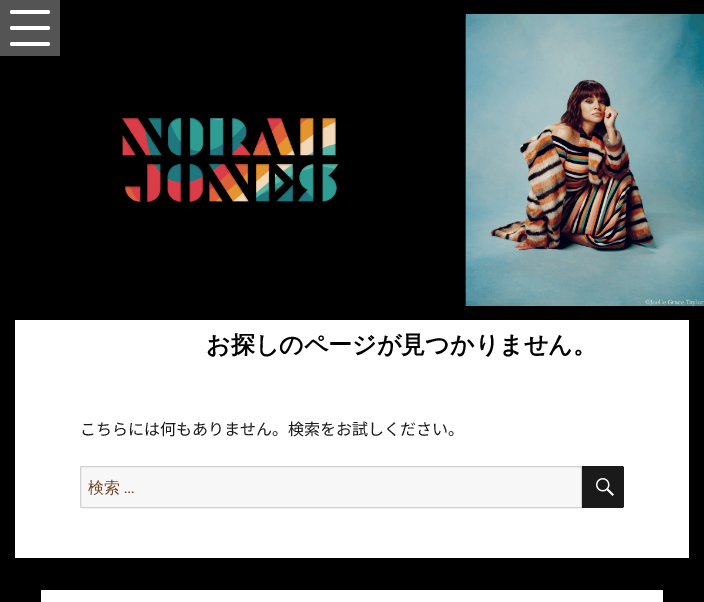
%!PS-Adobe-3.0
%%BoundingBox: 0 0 704 602
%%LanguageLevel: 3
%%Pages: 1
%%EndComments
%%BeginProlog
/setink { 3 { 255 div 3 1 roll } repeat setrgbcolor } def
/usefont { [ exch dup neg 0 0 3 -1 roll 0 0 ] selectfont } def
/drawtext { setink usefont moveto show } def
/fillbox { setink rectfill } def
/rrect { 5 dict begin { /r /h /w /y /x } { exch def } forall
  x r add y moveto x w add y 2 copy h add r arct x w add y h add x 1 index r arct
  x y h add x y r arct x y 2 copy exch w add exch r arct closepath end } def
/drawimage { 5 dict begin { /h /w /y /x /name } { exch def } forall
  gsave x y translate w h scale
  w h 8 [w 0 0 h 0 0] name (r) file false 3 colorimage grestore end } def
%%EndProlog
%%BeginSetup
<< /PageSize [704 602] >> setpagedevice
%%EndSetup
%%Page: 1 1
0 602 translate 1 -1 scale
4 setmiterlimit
0 0 704 602 0 0 0 fillbox
0 0 60 56 84 84 84 fillbox
255 255 255 setink
10 10 40 4 2 rrect fill
10 26 40 4 2 rrect fill
10 42 40 4 2 rrect fill
(assets/img1.rgb) 122 14 582 292 drawimage
15 320 674 238 255 255 255 fillbox
(お探しのページが見つかりません。) 206 353 /WenQuanYiZenHei-Bold 24 0 0 0 drawtext
(こちらには何もありません。検索をお試しください。) 80 435 /NotoSansJP-Regular 16 26 26 26 drawtext
247 247 247 setink
82 466.5 moveto 581.5 466.5 lineto 581.5 507.5 lineto 82 507.5 lineto 81 507.5 80.5 507 80.5 506 curveto 80.5 468 lineto 80.5 467 81 466.5 82 466.5 curveto closepath gsave fill grestore
209 209 209 setink
stroke
(検索) 88 493 /WenQuanYiZenHei-Medium 16 113 70 41 drawtext
(…) 124 493 /Montserrat-Regular 16 113 70 41 drawtext
26 26 26 setink
582 466 moveto 622 466 lineto 623 466 624 467 624 468 curveto 624 506 lineto 624 507 623 508 622 508 curveto 582 508 lineto closepath fill
(assets/img2.rgb) 596 478 18 18 drawimage
41 590 622 12 255 255 255 fillbox
showpage
%%EOF
